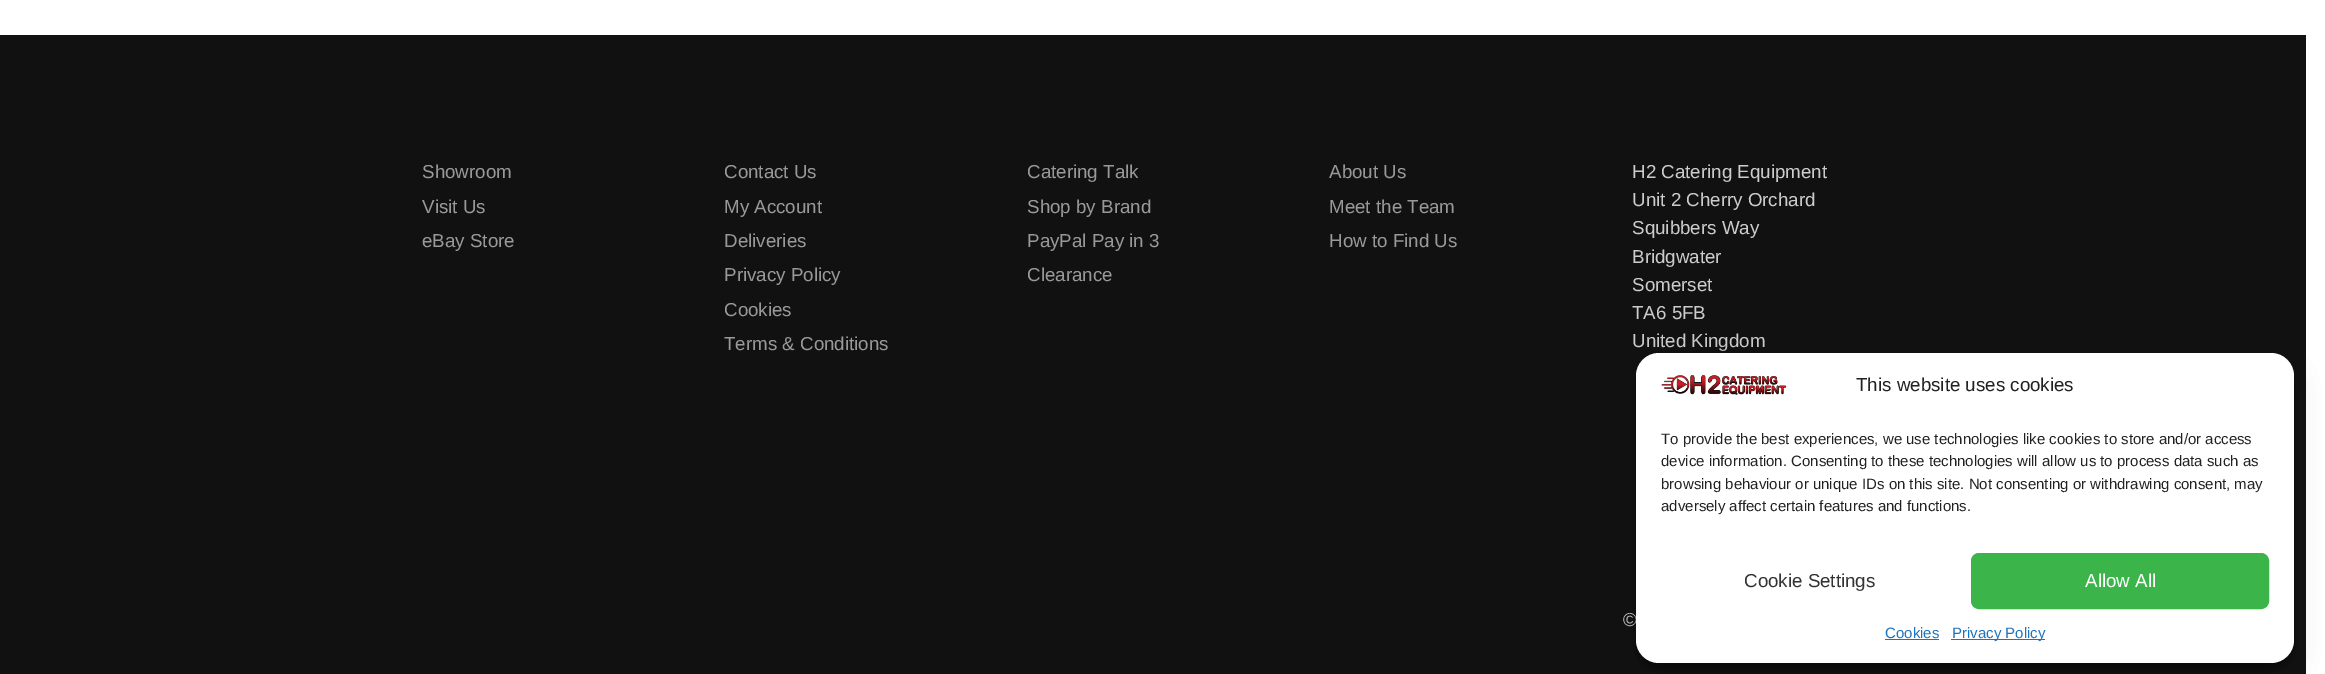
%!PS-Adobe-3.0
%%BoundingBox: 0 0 2325 674
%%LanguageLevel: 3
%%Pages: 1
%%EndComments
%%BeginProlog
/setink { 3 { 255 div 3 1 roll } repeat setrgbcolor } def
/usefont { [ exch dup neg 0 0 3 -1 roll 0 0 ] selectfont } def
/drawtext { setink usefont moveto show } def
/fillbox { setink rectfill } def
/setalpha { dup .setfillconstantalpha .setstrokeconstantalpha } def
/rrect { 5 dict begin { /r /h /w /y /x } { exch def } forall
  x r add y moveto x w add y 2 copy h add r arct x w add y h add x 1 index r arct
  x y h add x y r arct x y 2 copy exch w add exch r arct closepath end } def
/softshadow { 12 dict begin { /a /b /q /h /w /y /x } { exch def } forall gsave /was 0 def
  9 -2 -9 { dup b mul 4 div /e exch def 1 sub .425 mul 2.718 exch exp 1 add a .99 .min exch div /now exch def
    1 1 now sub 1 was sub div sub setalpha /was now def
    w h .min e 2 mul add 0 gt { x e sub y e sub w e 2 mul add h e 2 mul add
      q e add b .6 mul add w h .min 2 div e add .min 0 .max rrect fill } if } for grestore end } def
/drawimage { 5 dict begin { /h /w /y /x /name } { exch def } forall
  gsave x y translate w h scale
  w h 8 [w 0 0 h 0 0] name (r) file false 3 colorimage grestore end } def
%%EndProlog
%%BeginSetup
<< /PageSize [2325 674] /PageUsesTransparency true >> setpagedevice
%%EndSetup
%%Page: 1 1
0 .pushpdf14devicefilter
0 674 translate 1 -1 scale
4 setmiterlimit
0 0 2325 674 255 255 255 fillbox
0 35 2306 639 17 17 17 fillbox
(Showroom) 422 178 /LiberationSans-Regular 18.75 153 153 153 drawtext
(Visit Us) 422 213 /LiberationSans-Regular 18.75 153 153 153 drawtext
(eBay Store) 422 247 /LiberationSans-Regular 18.75 153 153 153 drawtext
(Contact Us) 724 178 /LiberationSans-Regular 18.75 153 153 153 drawtext
(My Account) 724 213 /LiberationSans-Regular 18.75 153 153 153 drawtext
(Deliveries) 724 247 /LiberationSans-Regular 18.75 153 153 153 drawtext
(Privacy Policy) 724 281 /LiberationSans-Regular 18.75 153 153 153 drawtext
(Cookies) 724 316 /LiberationSans-Regular 18.75 153 153 153 drawtext
(Terms & Conditions) 724 350 /LiberationSans-Regular 18.75 153 153 153 drawtext
(Catering Talk) 1027 178 /LiberationSans-Regular 18.75 153 153 153 drawtext
(Shop by Brand) 1027 213 /LiberationSans-Regular 18.75 153 153 153 drawtext
(PayPal Pay in 3) 1027 247 /LiberationSans-Regular 18.75 153 153 153 drawtext
(Clearance) 1027 281 /LiberationSans-Regular 18.75 153 153 153 drawtext
(About Us) 1329 178 /LiberationSans-Regular 18.75 153 153 153 drawtext
(Meet the Team) 1329 213 /LiberationSans-Regular 18.75 153 153 153 drawtext
(How to Find Us) 1329 247 /LiberationSans-Regular 18.75 153 153 153 drawtext
(H2 Catering Equipment) 1632 178 /LiberationSans-Regular 18.75 204 204 204 drawtext
(Unit 2 Cherry Orchard) 1632 206 /LiberationSans-Regular 18.75 204 204 204 drawtext
(Squibbers Way) 1632 234 /LiberationSans-Regular 18.75 204 204 204 drawtext
(Bridgwater) 1632 263 /LiberationSans-Regular 18.75 204 204 204 drawtext
(Somerset) 1632 291 /LiberationSans-Regular 18.75 204 204 204 drawtext
(TA6 5FB) 1632 319 /LiberationSans-Regular 18.75 204 204 204 drawtext
(United Kingdom) 1632 347 /LiberationSans-Regular 18.75 204 204 204 drawtext
(©) 1623 626 /LiberationSans-Regular 18.75 204 204 204 drawtext
0 0 0 setink
1636 360 658 310 23 4 0.23 softshadow
1636 365 658 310 23 12.5 0.19 softshadow
255 255 255 setink
1636 353 658 310 23 rrect fill
(assets/img1.rgb) 1661 375 126 20 drawimage
(This website uses cookies) 1856 391 /LiberationSans-Regular 18.75 34 34 34 drawtext
(To provide the best experiences, we use technologies like cookies to store and/or access) 1661 444 /LiberationSans-Regular 15 34 34 34 drawtext
(device information. Consenting to these technologies will allow us to process data such as) 1661 466 /LiberationSans-Regular 15 34 34 34 drawtext
(browsing behaviour or unique IDs on this site. Not consenting or withdrawing consent, may) 1661 489 /LiberationSans-Regular 15 34 34 34 drawtext
(adversely affect certain features and functions.) 1661 511 /LiberationSans-Regular 15 34 34 34 drawtext
(Cookie Settings) 1744 587 /LiberationSans-Regular 18.75 51 51 51 drawtext
59 181 74 setink
1971.5 553.5 297 55 7.5 rrect gsave fill grestore
stroke
(Allow All) 2085 587 /LiberationSans-Regular 18.75 255 255 255 drawtext
(Cookies) 1885 638 /LiberationSans-Regular 15 30 115 190 drawtext
1885 639 54 1 30 115 190 fillbox
1951 639 94 1 30 115 190 fillbox
(Privacy Policy) 1952 638 /LiberationSans-Regular 15 30 115 190 drawtext
.poppdf14devicefilter showpage
%%EOF
